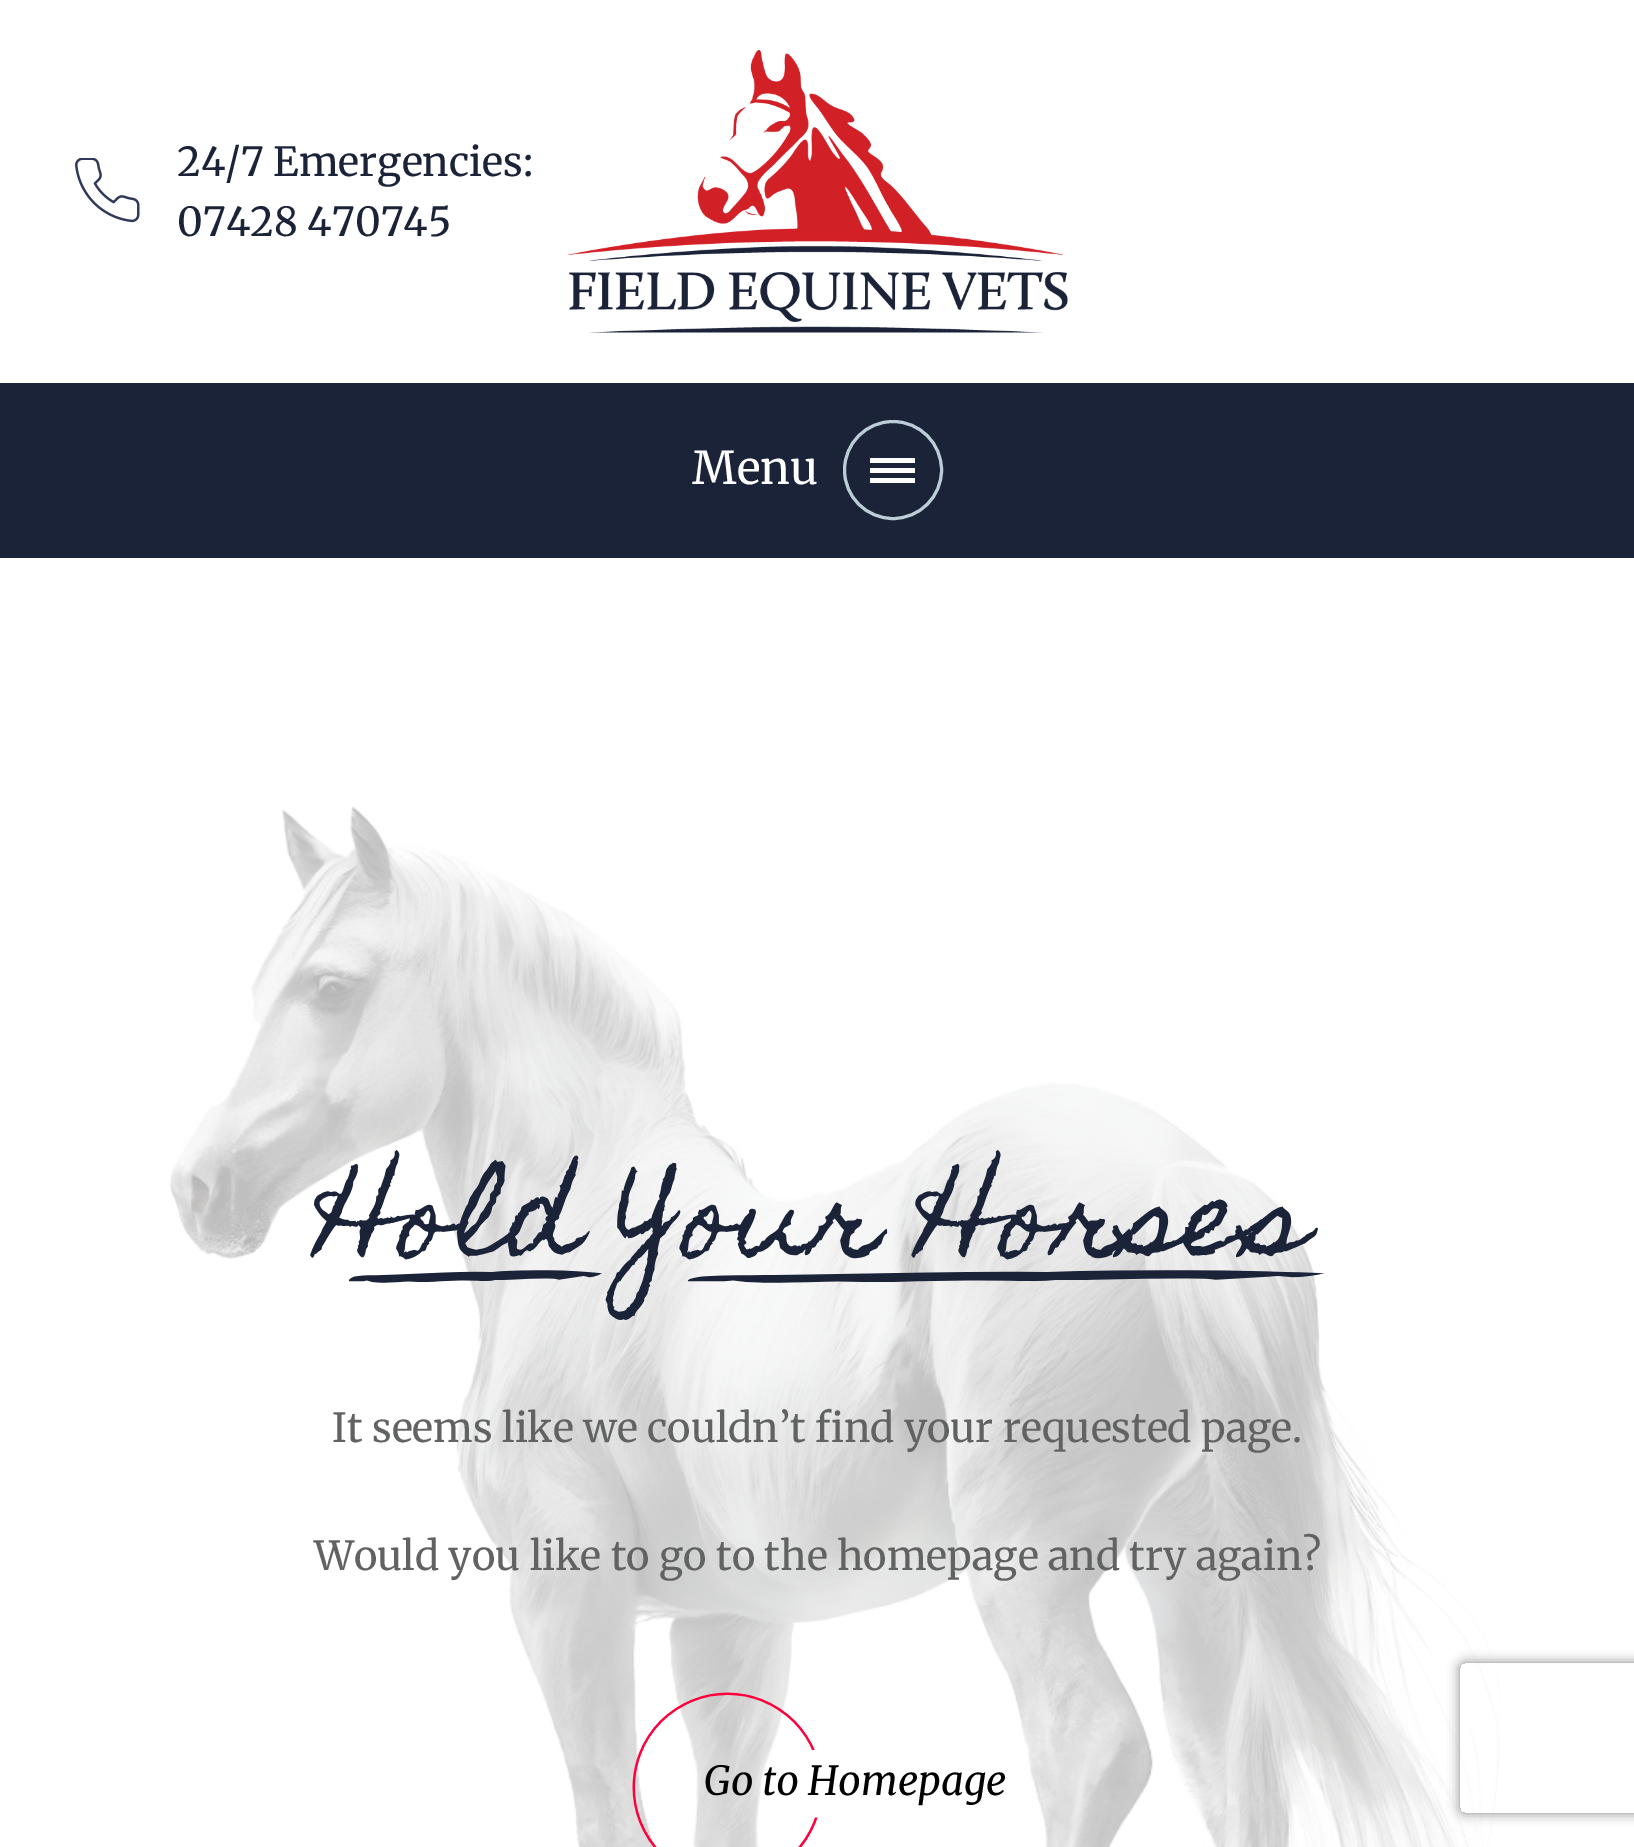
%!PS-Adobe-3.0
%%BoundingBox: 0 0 1634 1847
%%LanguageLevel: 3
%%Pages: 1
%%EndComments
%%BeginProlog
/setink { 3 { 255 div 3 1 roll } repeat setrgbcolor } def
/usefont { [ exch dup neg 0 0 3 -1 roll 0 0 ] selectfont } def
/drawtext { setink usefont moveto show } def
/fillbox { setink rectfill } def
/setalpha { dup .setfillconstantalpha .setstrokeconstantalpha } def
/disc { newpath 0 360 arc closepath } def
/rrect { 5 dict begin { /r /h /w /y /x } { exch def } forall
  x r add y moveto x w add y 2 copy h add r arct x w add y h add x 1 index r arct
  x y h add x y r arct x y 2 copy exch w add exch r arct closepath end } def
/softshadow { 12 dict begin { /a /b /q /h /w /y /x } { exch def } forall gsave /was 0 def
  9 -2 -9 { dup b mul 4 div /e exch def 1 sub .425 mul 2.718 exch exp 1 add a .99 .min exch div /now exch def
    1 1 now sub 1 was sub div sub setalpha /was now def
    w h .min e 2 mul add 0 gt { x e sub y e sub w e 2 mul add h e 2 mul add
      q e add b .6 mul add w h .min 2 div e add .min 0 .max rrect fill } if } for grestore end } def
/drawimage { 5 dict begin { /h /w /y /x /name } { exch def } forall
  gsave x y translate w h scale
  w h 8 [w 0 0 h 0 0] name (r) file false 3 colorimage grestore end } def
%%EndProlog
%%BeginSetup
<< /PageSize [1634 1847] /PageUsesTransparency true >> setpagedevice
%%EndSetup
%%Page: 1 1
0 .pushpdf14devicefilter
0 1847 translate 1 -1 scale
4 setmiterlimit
0 0 1634 1847 255 255 255 fillbox
(assets/img1.rgb) 75 158 65 65 drawimage
(24/7 Emergencies:) 177 176 /Merriweather-Regular 40 27 35 57 drawtext
(07428 470745) 177 236 /Merriweather-Regular 40 27 35 57 drawtext
(assets/img2.rgb) 567 50 501 283 drawimage
0 383 1634 175 27 35 57 fillbox
(Menu) 692 484 /Merriweather-Regular 45 255 255 255 drawtext
188 205 216 setink
3 setlinewidth
893 470 48.5 disc stroke
870 458 45 5 255 255 255 fillbox
870 468 45 5 255 255 255 fillbox
870 478 45 5 255 255 255 fillbox
(assets/img3.rgb) 169 806 1331 1041 drawimage
(assets/img4.rgb) 310 1150 1015 170 drawimage
(It seems like we couldn’t find your requested page.) 332 1442 /Merriweather-Regular 40 97 98 98 drawtext
(Would you like to go to the homepage and try again?) 314 1570 /Merriweather-Regular 40 97 98 98 drawtext
(Go to Homepage) 704 1795 /Merriweather-Italic 40 0 0 0 drawtext
(assets/img5.rgb) 632 1692 186 155 drawimage
gsave
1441 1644 moveto 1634 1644 lineto 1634 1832 lineto 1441 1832 lineto closepath 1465 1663 moveto 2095 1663 lineto 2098 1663 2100 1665 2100 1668 curveto 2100 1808 lineto 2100 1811 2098 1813 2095 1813 curveto 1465 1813 lineto 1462 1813 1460 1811 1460 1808 curveto 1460 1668 lineto 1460 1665 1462 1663 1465 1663 curveto closepath eoclip newpath
128 128 128 setink
1460 1663 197 150 5 6 1 softshadow
grestore
.poppdf14devicefilter showpage
%%EOF
